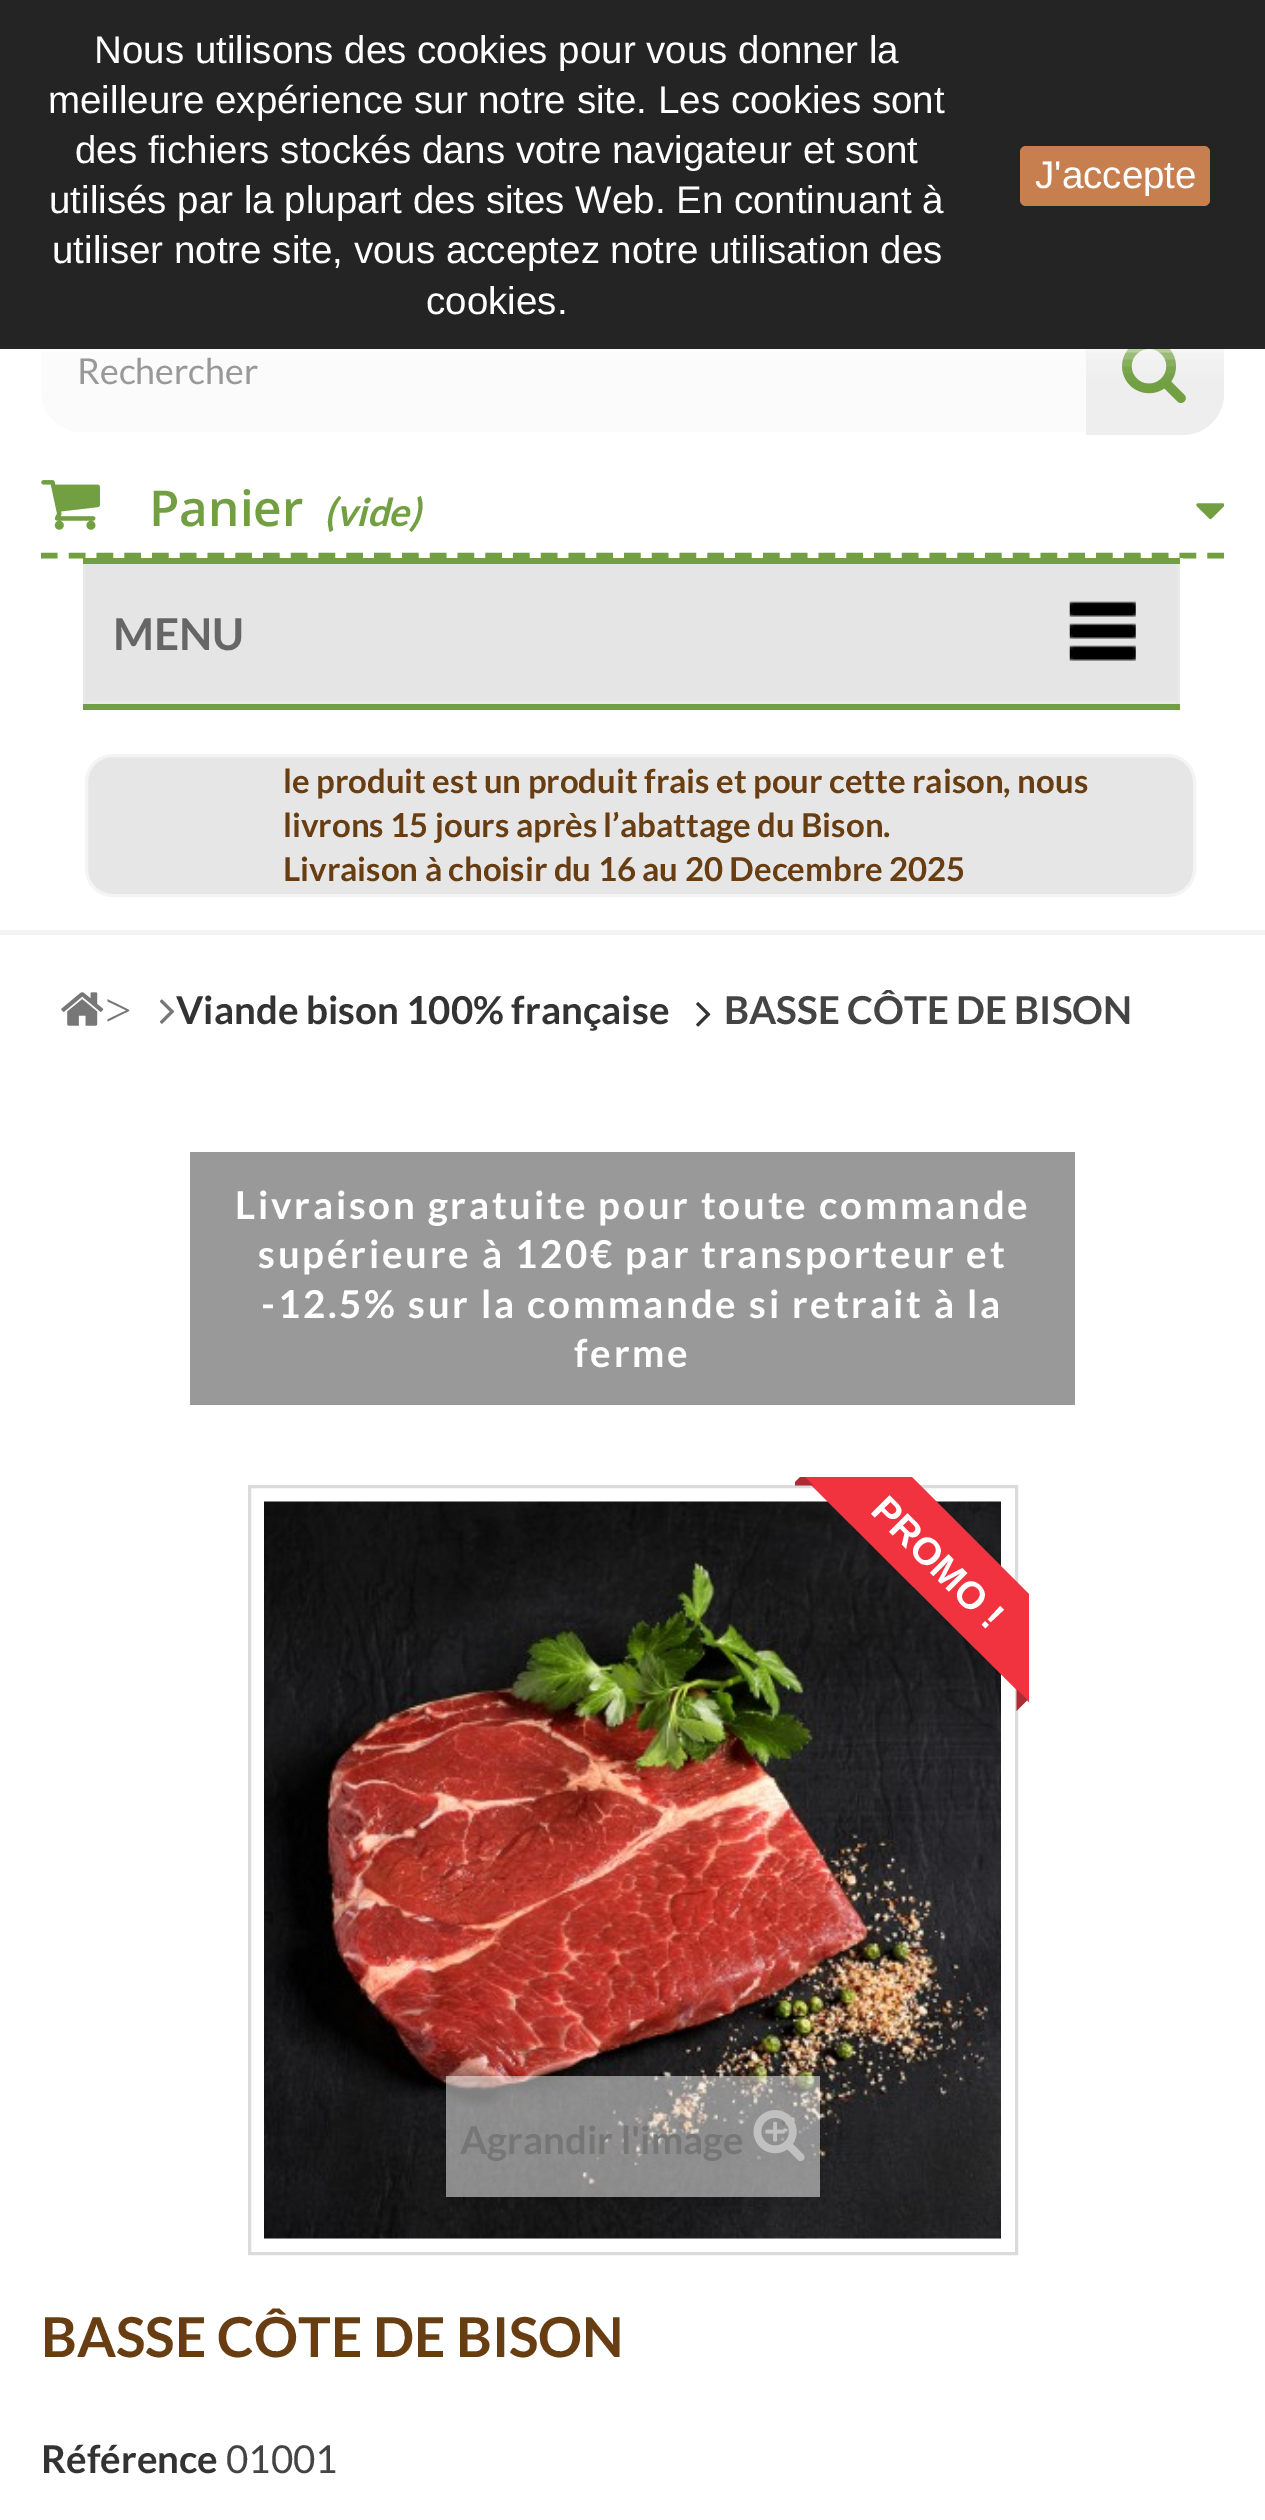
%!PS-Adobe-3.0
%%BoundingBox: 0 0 1265 2520
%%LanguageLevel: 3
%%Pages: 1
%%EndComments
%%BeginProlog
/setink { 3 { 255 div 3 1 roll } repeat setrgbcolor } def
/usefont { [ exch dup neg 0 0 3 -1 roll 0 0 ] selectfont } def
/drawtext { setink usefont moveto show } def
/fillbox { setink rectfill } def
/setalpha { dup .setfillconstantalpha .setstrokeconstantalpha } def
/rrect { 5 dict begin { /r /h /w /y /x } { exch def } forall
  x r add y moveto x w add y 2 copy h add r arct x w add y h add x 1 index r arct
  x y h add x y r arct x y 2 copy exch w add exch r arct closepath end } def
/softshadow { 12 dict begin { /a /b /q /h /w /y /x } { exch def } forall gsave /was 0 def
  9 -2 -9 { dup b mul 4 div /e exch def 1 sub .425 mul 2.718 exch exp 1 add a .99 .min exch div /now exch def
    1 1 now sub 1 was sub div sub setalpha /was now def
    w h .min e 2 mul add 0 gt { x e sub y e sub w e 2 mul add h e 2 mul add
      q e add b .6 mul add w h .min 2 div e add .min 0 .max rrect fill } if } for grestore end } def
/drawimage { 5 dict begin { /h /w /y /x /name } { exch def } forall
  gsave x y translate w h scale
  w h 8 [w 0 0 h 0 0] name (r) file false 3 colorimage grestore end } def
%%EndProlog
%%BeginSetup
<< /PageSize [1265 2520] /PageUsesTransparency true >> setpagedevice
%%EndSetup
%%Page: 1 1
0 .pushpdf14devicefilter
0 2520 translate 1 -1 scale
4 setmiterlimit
0 0 1265 2520 255 255 255 fillbox
251 251 251 setink
41 308 1183 124 41 rrect fill
238 238 238 setink
1086 308 moveto 1183 308 lineto 1205.5 308 1224 326.5 1224 349 curveto 1224 394 lineto 1224 416.5 1205.5 435 1183 435 curveto 1086 435 lineto closepath fill
(assets/img1.rgb) 1122 349 64 55 drawimage
255 255 255 setink
0 0 1265 349 0 14 1 softshadow
0 0 1265 349 36 36 36 fillbox
(Nous utilisons des cookies pour vous donner la) 94 63 /LiberationSans-Regular 38.5 255 255 255 drawtext
(meilleure expérience sur notre site. Les cookies sont) 48 113 /LiberationSans-Regular 38.5 255 255 255 drawtext
(des fichiers stockés dans votre navigateur et sont) 75 163 /LiberationSans-Regular 38.5 255 255 255 drawtext
(utilisés par la plupart des sites Web. En continuant à) 49 213 /LiberationSans-Regular 38.5 255 255 255 drawtext
(utiliser notre site, vous acceptez notre utilisation des) 52 263 /LiberationSans-Regular 38.5 255 255 255 drawtext
(cookies.) 426 314 /LiberationSans-Regular 38.5 255 255 255 drawtext
199 127 80 setink
1020 146 190 60 6 rrect fill
(J'accepte) 1035 188 /LiberationSans-Regular 38.5 255 255 255 drawtext
(Rechercher) 77 384 /Lato-Regular 35.75 153 153 153 drawtext
113 159 65 setink
5.5 setlinewidth
[16.5 11.27] 0 setdash
41 555.5 moveto 1224 555.5 lineto stroke
(assets/img2.rgb) 41 480 59 50 drawimage
(Panier) 149 526 /OpenSans-SemiBold 49.5 113 159 65 drawtext
(\(vide\)) 324 526 /Lato-BoldItalic 38.5 113 159 65 drawtext
(assets/img3.rgb) 1196 503 28 17 drawimage
1180 558 3 1 255 255 255 fillbox
83 558 1097 6 113 159 65 fillbox
83 704 1097 6 113 159 65 fillbox
1177 564 3 140 233 233 233 fillbox
83 701 1097 3 233 233 233 fillbox
83 564 3 140 233 233 233 fillbox
85 564 1092 137 229 229 229 fillbox
(assets/img4.rgb) 1069 601 67 60 drawimage
(MENU) 113 650 /Lato-Bold 44 102 102 102 drawtext
230 230 230 setink
86.5 755.5 1108 140 26.5 rrect gsave fill grestore
244 244 244 setink
3 setlinewidth
[] 0 setdash
stroke
(le produit est un produit frais et pour cette raison, nous) 283 793 /Lato-Bold 33 104 61 17 drawtext
(livrons 15 jours après l’abattage du Bison.) 283 837 /Lato-Bold 33 104 61 17 drawtext
(Livraison à choisir du 16 au 20 Decembre 2025) 283 881 /Lato-Bold 33 104 61 17 drawtext
0 930 1265 5 244 244 244 fillbox
(assets/img5.rgb) 61 992 43 34 drawimage
(>) 105 1026 /LiberationSerif-Regular 47 119 118 118 drawtext
(assets/img6.rgb) 159 999 15 25 drawimage
(Viande bison 100% française) 176 1024 /Lato-Bold 38.5 51 51 51 drawtext
(assets/img7.rgb) 696 1002 15 25 drawimage
(BASSE CÔTE DE BISON) 724 1024 /Lato-Bold 38.5 68 68 68 drawtext
190 1152 885 253 153 153 153 fillbox
255 255 255 setink
235 1219 moveto 2.75 0 (Livraison gratuite pour toute commande) ashow
258 1268 moveto 2.75 0 (supérieure à 120€ par transporteur et) ashow
261 1318 moveto 2.75 0 (-12.5% sur la commande si retrait à la) ashow
574 1367 moveto 2.75 0 (ferme) ashow
219 219 219 setink
249.5 1486.5 767 767 rectstroke
264 2238 737 1 251 251 251 fillbox
(assets/img8.rgb) 264 1501 737 738 drawimage
gsave
795 1477 234 234 rectclip
241 51 64 setink
841 1406 moveto 1094 1659 lineto 1040 1713 lineto 787 1461 lineto closepath fill
173 43 52 setink
813.5 1485.5 moveto 791.5 1485.5 lineto 802.5 1474.5 lineto closepath fill
grestore
/LiberationSans-Bold 38.5 usefont
255 255 255 setink
gsave 869 1512 translate 45 rotate 0 0 moveto (PROMO !) show grestore
173 43 52 setink
1016.5 1711 moveto 1016.5 1689 lineto 1027.5 1700 lineto closepath fill
gsave
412 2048 moveto 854 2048 lineto 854 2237 lineto 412 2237 lineto closepath 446 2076 moveto 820 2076 lineto 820 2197 lineto 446 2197 lineto closepath eoclip newpath
0 0 0 setink
446 2082 374 121 0 11 0.16 softshadow
grestore
0.5 setalpha
446 2076 374 121 255 255 255 fillbox
1 setalpha
(Agrandir l'image) 460 2154 /Lato-Bold 38.5 119 118 118 drawtext
(assets/img9.rgb) 753 2110 52 51 drawimage
(BASSE CÔTE DE BISON) 41 2357 /Lato-Bold 55 104 61 17 drawtext
(Référence) 41 2473 /Lato-Bold 38.5 51 51 51 drawtext
(01001) 226 2473 /Lato-Regular 38.5 68 68 68 drawtext
.poppdf14devicefilter showpage
%%EOF
